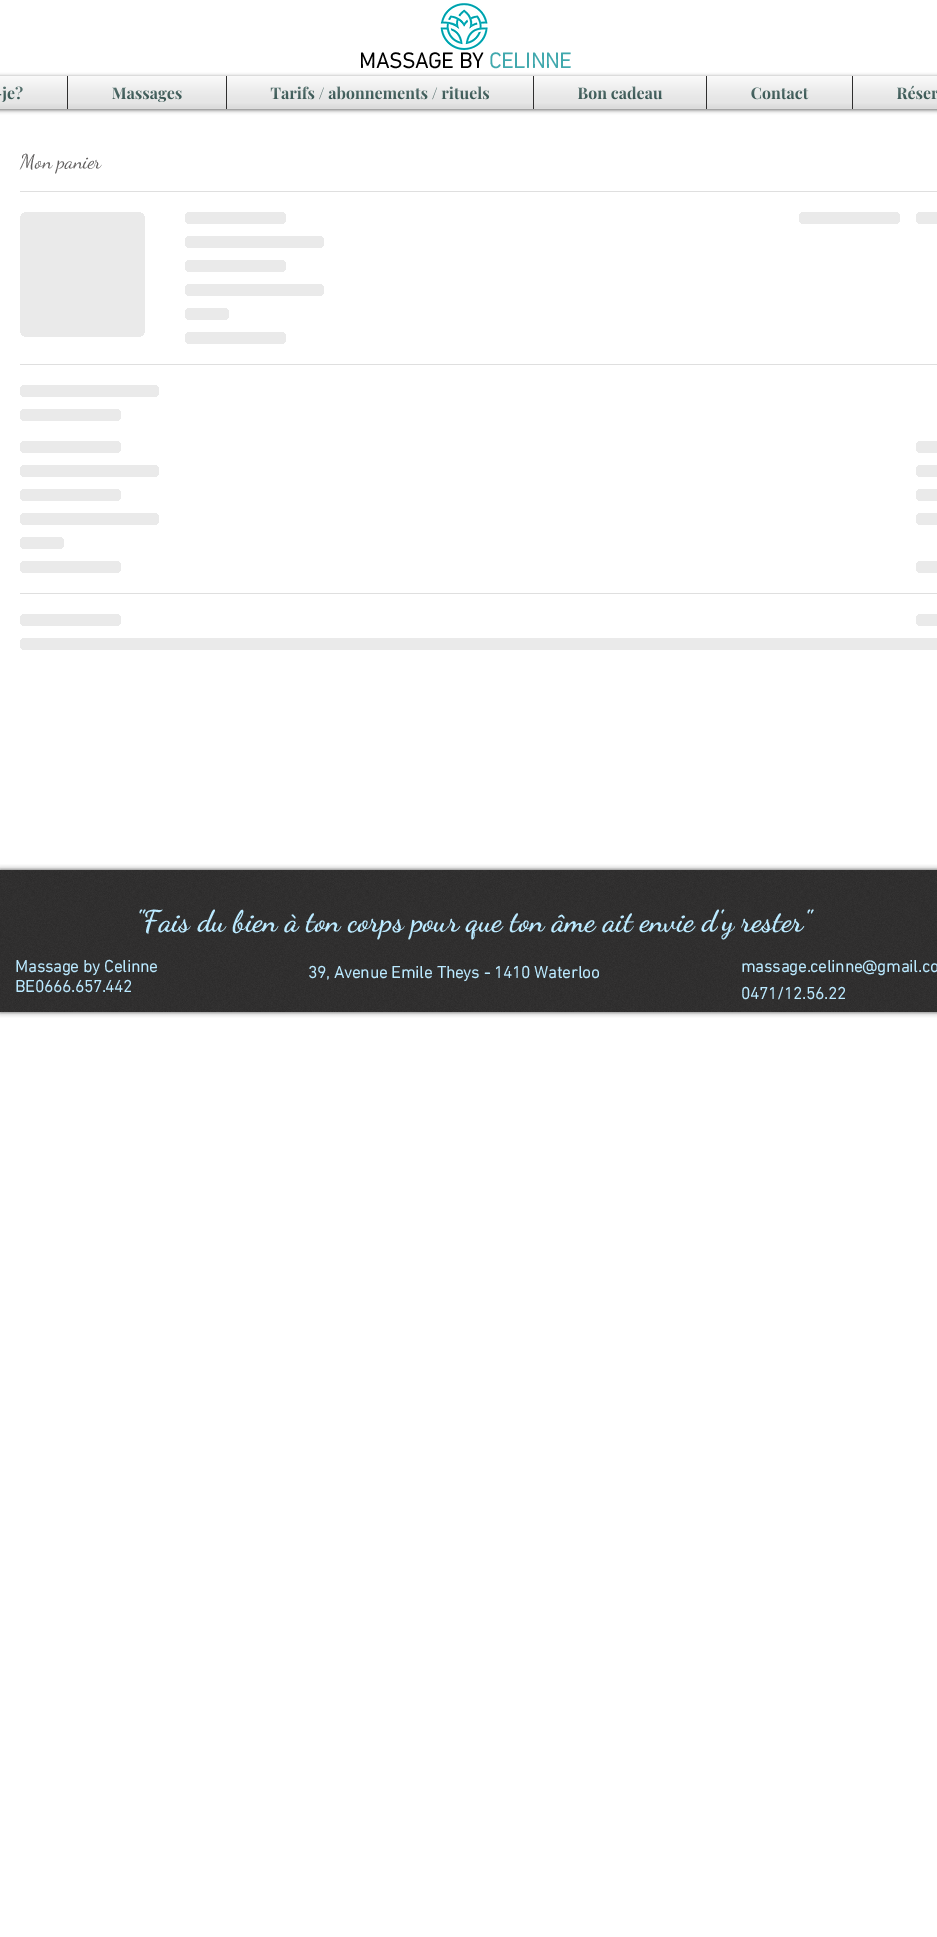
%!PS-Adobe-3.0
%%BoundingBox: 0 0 937 1937
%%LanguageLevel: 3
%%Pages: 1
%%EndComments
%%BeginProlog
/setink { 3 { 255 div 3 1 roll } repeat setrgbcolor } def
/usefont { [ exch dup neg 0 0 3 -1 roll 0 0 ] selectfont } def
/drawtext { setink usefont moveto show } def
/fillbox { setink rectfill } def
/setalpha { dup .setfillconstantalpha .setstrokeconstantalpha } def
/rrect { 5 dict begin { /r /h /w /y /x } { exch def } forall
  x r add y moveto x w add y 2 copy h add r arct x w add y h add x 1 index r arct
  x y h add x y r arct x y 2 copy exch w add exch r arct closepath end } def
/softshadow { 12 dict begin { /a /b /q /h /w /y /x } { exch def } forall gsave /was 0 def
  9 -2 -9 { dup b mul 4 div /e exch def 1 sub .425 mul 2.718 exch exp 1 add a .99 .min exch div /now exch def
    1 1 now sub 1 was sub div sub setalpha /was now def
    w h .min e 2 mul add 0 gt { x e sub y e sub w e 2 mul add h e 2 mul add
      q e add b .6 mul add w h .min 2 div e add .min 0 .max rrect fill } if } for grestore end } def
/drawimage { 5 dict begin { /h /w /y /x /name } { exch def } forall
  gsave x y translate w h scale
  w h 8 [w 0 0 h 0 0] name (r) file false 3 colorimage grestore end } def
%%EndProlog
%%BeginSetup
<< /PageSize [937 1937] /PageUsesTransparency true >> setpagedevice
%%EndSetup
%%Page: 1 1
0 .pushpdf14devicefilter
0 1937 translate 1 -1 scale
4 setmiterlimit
0 0 937 1937 255 255 255 fillbox
(assets/img1.rgb) 440 3 48 48 drawimage
(MASSAGE BY) 359 68 /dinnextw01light-Bold 22 0 0 0 drawtext
(CELINNE) 489 68 /dinnextw01light-Bold 22 64 168 173 drawtext
0 0 0 setink
-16 77 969 33 10 2 0.6 softshadow
0 76 67 33 255 255 255 fillbox
(je?) 2 99 /PlayfairDisplay-Bold 16 22 62 58 drawtext
(assets/img2.rgb) 0 86 23 16 drawimage
(assets/img3.rgb) 0 76 67 33 drawimage
68 76 158 33 255 255 255 fillbox
67 76 1 33 47 46 46 fillbox
(Massages) 112 99 /PlayfairDisplay-Bold 16 22 62 58 drawtext
(assets/img4.rgb) 112 87 70 15 drawimage
(assets/img5.rgb) 68 76 158 33 drawimage
227 76 306 33 255 255 255 fillbox
226 76 1 33 47 46 46 fillbox
(Tarifs / abonnements / rituels) 270 99 /PlayfairDisplay-Bold 16 22 62 58 drawtext
(assets/img6.rgb) 270 86 219 14 drawimage
(assets/img7.rgb) 227 76 306 33 drawimage
534 76 172 33 255 255 255 fillbox
533 76 1 33 47 46 46 fillbox
(Bon cadeau) 577 99 /PlayfairDisplay-Bold 16 22 62 58 drawtext
(assets/img8.rgb) 578 86 85 14 drawimage
(assets/img9.rgb) 534 76 172 33 drawimage
707 76 145 33 255 255 255 fillbox
706 76 1 33 47 46 46 fillbox
(Contact) 751 99 /PlayfairDisplay-Bold 16 22 62 58 drawtext
(assets/img10.rgb) 751 87 58 13 drawimage
(assets/img11.rgb) 707 76 145 33 drawimage
853 76 84 33 255 255 255 fillbox
852 76 1 33 47 46 46 fillbox
(Réser) 896 99 /PlayfairDisplay-Bold 16 22 62 58 drawtext
(assets/img12.rgb) 897 85 40 15 drawimage
(assets/img13.rgb) 853 76 84 33 drawimage
20 191 917 1 223 223 223 fillbox
(Mon panier) 20 168 /DancingScript-Regular 20 96 94 94 drawtext
gsave 20 212 125 125 8 rrect clip newpath
<< /ShadingType 2 /ColorSpace /DeviceRGB /Coords [20 275 520 275] /Extend [true true] /Function << /FunctionType 3 /Domain [0 1] /Functions [<< /FunctionType 2 /Domain [0 1] /C0 [0.918 0.918 0.918] /C1 [0.918 0.918 0.918] /N 1 >> << /FunctionType 2 /Domain [0 1] /C0 [0.918 0.918 0.918] /C1 [0.835 0.835 0.835] /N 1 >> << /FunctionType 2 /Domain [0 1] /C0 [0.835 0.835 0.835] /C1 [0.918 0.918 0.918] /N 1 >> << /FunctionType 2 /Domain [0 1] /C0 [0.918 0.918 0.918] /C1 [0.918 0.918 0.918] /N 1 >>] /Bounds [0.25 0.37 0.63] /Encode [0 1 0 1 0 1 0 1] >> >> shfill grestore
gsave 185 212 101 12 6 rrect clip newpath
<< /ShadingType 2 /ColorSpace /DeviceRGB /Coords [185 218 589 218] /Extend [true true] /Function << /FunctionType 3 /Domain [0 1] /Functions [<< /FunctionType 2 /Domain [0 1] /C0 [0.918 0.918 0.918] /C1 [0.918 0.918 0.918] /N 1 >> << /FunctionType 2 /Domain [0 1] /C0 [0.918 0.918 0.918] /C1 [0.835 0.835 0.835] /N 1 >> << /FunctionType 2 /Domain [0 1] /C0 [0.835 0.835 0.835] /C1 [0.918 0.918 0.918] /N 1 >> << /FunctionType 2 /Domain [0 1] /C0 [0.918 0.918 0.918] /C1 [0.918 0.918 0.918] /N 1 >>] /Bounds [0.25 0.37 0.63] /Encode [0 1 0 1 0 1 0 1] >> >> shfill grestore
gsave 185 236 139 12 6 rrect clip newpath
<< /ShadingType 2 /ColorSpace /DeviceRGB /Coords [185 242 741 242] /Extend [true true] /Function << /FunctionType 3 /Domain [0 1] /Functions [<< /FunctionType 2 /Domain [0 1] /C0 [0.918 0.918 0.918] /C1 [0.918 0.918 0.918] /N 1 >> << /FunctionType 2 /Domain [0 1] /C0 [0.918 0.918 0.918] /C1 [0.835 0.835 0.835] /N 1 >> << /FunctionType 2 /Domain [0 1] /C0 [0.835 0.835 0.835] /C1 [0.918 0.918 0.918] /N 1 >> << /FunctionType 2 /Domain [0 1] /C0 [0.918 0.918 0.918] /C1 [0.918 0.918 0.918] /N 1 >>] /Bounds [0.25 0.37 0.63] /Encode [0 1 0 1 0 1 0 1] >> >> shfill grestore
gsave 185 260 101 12 6 rrect clip newpath
<< /ShadingType 2 /ColorSpace /DeviceRGB /Coords [185 266 589 266] /Extend [true true] /Function << /FunctionType 3 /Domain [0 1] /Functions [<< /FunctionType 2 /Domain [0 1] /C0 [0.918 0.918 0.918] /C1 [0.918 0.918 0.918] /N 1 >> << /FunctionType 2 /Domain [0 1] /C0 [0.918 0.918 0.918] /C1 [0.835 0.835 0.835] /N 1 >> << /FunctionType 2 /Domain [0 1] /C0 [0.835 0.835 0.835] /C1 [0.918 0.918 0.918] /N 1 >> << /FunctionType 2 /Domain [0 1] /C0 [0.918 0.918 0.918] /C1 [0.918 0.918 0.918] /N 1 >>] /Bounds [0.25 0.37 0.63] /Encode [0 1 0 1 0 1 0 1] >> >> shfill grestore
gsave 185 284 139 12 6 rrect clip newpath
<< /ShadingType 2 /ColorSpace /DeviceRGB /Coords [185 290 741 290] /Extend [true true] /Function << /FunctionType 3 /Domain [0 1] /Functions [<< /FunctionType 2 /Domain [0 1] /C0 [0.918 0.918 0.918] /C1 [0.918 0.918 0.918] /N 1 >> << /FunctionType 2 /Domain [0 1] /C0 [0.918 0.918 0.918] /C1 [0.835 0.835 0.835] /N 1 >> << /FunctionType 2 /Domain [0 1] /C0 [0.835 0.835 0.835] /C1 [0.918 0.918 0.918] /N 1 >> << /FunctionType 2 /Domain [0 1] /C0 [0.918 0.918 0.918] /C1 [0.918 0.918 0.918] /N 1 >>] /Bounds [0.25 0.37 0.63] /Encode [0 1 0 1 0 1 0 1] >> >> shfill grestore
gsave 185 308 44 12 6 rrect clip newpath
<< /ShadingType 2 /ColorSpace /DeviceRGB /Coords [185 314 361 314] /Extend [true true] /Function << /FunctionType 3 /Domain [0 1] /Functions [<< /FunctionType 2 /Domain [0 1] /C0 [0.918 0.918 0.918] /C1 [0.918 0.918 0.918] /N 1 >> << /FunctionType 2 /Domain [0 1] /C0 [0.918 0.918 0.918] /C1 [0.835 0.835 0.835] /N 1 >> << /FunctionType 2 /Domain [0 1] /C0 [0.835 0.835 0.835] /C1 [0.918 0.918 0.918] /N 1 >> << /FunctionType 2 /Domain [0 1] /C0 [0.918 0.918 0.918] /C1 [0.918 0.918 0.918] /N 1 >>] /Bounds [0.25 0.37 0.63] /Encode [0 1 0 1 0 1 0 1] >> >> shfill grestore
gsave 185 332 101 12 6 rrect clip newpath
<< /ShadingType 2 /ColorSpace /DeviceRGB /Coords [185 338 589 338] /Extend [true true] /Function << /FunctionType 3 /Domain [0 1] /Functions [<< /FunctionType 2 /Domain [0 1] /C0 [0.918 0.918 0.918] /C1 [0.918 0.918 0.918] /N 1 >> << /FunctionType 2 /Domain [0 1] /C0 [0.918 0.918 0.918] /C1 [0.835 0.835 0.835] /N 1 >> << /FunctionType 2 /Domain [0 1] /C0 [0.835 0.835 0.835] /C1 [0.918 0.918 0.918] /N 1 >> << /FunctionType 2 /Domain [0 1] /C0 [0.918 0.918 0.918] /C1 [0.918 0.918 0.918] /N 1 >>] /Bounds [0.25 0.37 0.63] /Encode [0 1 0 1 0 1 0 1] >> >> shfill grestore
gsave 799 212 101 12 6 rrect clip newpath
<< /ShadingType 2 /ColorSpace /DeviceRGB /Coords [799 218 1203 218] /Extend [true true] /Function << /FunctionType 3 /Domain [0 1] /Functions [<< /FunctionType 2 /Domain [0 1] /C0 [0.918 0.918 0.918] /C1 [0.918 0.918 0.918] /N 1 >> << /FunctionType 2 /Domain [0 1] /C0 [0.918 0.918 0.918] /C1 [0.835 0.835 0.835] /N 1 >> << /FunctionType 2 /Domain [0 1] /C0 [0.835 0.835 0.835] /C1 [0.918 0.918 0.918] /N 1 >> << /FunctionType 2 /Domain [0 1] /C0 [0.918 0.918 0.918] /C1 [0.918 0.918 0.918] /N 1 >>] /Bounds [0.25 0.37 0.63] /Encode [0 1 0 1 0 1 0 1] >> >> shfill grestore
gsave 916 212 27 12 6 rrect clip newpath
<< /ShadingType 2 /ColorSpace /DeviceRGB /Coords [916 218 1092 218] /Extend [true true] /Function << /FunctionType 3 /Domain [0 1] /Functions [<< /FunctionType 2 /Domain [0 1] /C0 [0.918 0.918 0.918] /C1 [0.918 0.918 0.918] /N 1 >> << /FunctionType 2 /Domain [0 1] /C0 [0.918 0.918 0.918] /C1 [0.835 0.835 0.835] /N 1 >> << /FunctionType 2 /Domain [0 1] /C0 [0.835 0.835 0.835] /C1 [0.918 0.918 0.918] /N 1 >> << /FunctionType 2 /Domain [0 1] /C0 [0.918 0.918 0.918] /C1 [0.918 0.918 0.918] /N 1 >>] /Bounds [0.25 0.37 0.63] /Encode [0 1 0 1 0 1 0 1] >> >> shfill grestore
20 364 917 1 223 223 223 fillbox
gsave 20 385 139 12 6 rrect clip newpath
<< /ShadingType 2 /ColorSpace /DeviceRGB /Coords [20 391 576 391] /Extend [true true] /Function << /FunctionType 3 /Domain [0 1] /Functions [<< /FunctionType 2 /Domain [0 1] /C0 [0.918 0.918 0.918] /C1 [0.918 0.918 0.918] /N 1 >> << /FunctionType 2 /Domain [0 1] /C0 [0.918 0.918 0.918] /C1 [0.835 0.835 0.835] /N 1 >> << /FunctionType 2 /Domain [0 1] /C0 [0.835 0.835 0.835] /C1 [0.918 0.918 0.918] /N 1 >> << /FunctionType 2 /Domain [0 1] /C0 [0.918 0.918 0.918] /C1 [0.918 0.918 0.918] /N 1 >>] /Bounds [0.25 0.37 0.63] /Encode [0 1 0 1 0 1 0 1] >> >> shfill grestore
gsave 20 409 101 12 6 rrect clip newpath
<< /ShadingType 2 /ColorSpace /DeviceRGB /Coords [20 415 424 415] /Extend [true true] /Function << /FunctionType 3 /Domain [0 1] /Functions [<< /FunctionType 2 /Domain [0 1] /C0 [0.918 0.918 0.918] /C1 [0.918 0.918 0.918] /N 1 >> << /FunctionType 2 /Domain [0 1] /C0 [0.918 0.918 0.918] /C1 [0.835 0.835 0.835] /N 1 >> << /FunctionType 2 /Domain [0 1] /C0 [0.835 0.835 0.835] /C1 [0.918 0.918 0.918] /N 1 >> << /FunctionType 2 /Domain [0 1] /C0 [0.918 0.918 0.918] /C1 [0.918 0.918 0.918] /N 1 >>] /Bounds [0.25 0.37 0.63] /Encode [0 1 0 1 0 1 0 1] >> >> shfill grestore
gsave 20 441 101 12 6 rrect clip newpath
<< /ShadingType 2 /ColorSpace /DeviceRGB /Coords [20 447 424 447] /Extend [true true] /Function << /FunctionType 3 /Domain [0 1] /Functions [<< /FunctionType 2 /Domain [0 1] /C0 [0.918 0.918 0.918] /C1 [0.918 0.918 0.918] /N 1 >> << /FunctionType 2 /Domain [0 1] /C0 [0.918 0.918 0.918] /C1 [0.835 0.835 0.835] /N 1 >> << /FunctionType 2 /Domain [0 1] /C0 [0.835 0.835 0.835] /C1 [0.918 0.918 0.918] /N 1 >> << /FunctionType 2 /Domain [0 1] /C0 [0.918 0.918 0.918] /C1 [0.918 0.918 0.918] /N 1 >>] /Bounds [0.25 0.37 0.63] /Encode [0 1 0 1 0 1 0 1] >> >> shfill grestore
gsave 916 441 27 12 6 rrect clip newpath
<< /ShadingType 2 /ColorSpace /DeviceRGB /Coords [916 447 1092 447] /Extend [true true] /Function << /FunctionType 3 /Domain [0 1] /Functions [<< /FunctionType 2 /Domain [0 1] /C0 [0.918 0.918 0.918] /C1 [0.918 0.918 0.918] /N 1 >> << /FunctionType 2 /Domain [0 1] /C0 [0.918 0.918 0.918] /C1 [0.835 0.835 0.835] /N 1 >> << /FunctionType 2 /Domain [0 1] /C0 [0.835 0.835 0.835] /C1 [0.918 0.918 0.918] /N 1 >> << /FunctionType 2 /Domain [0 1] /C0 [0.918 0.918 0.918] /C1 [0.918 0.918 0.918] /N 1 >>] /Bounds [0.25 0.37 0.63] /Encode [0 1 0 1 0 1 0 1] >> >> shfill grestore
gsave 20 465 139 12 6 rrect clip newpath
<< /ShadingType 2 /ColorSpace /DeviceRGB /Coords [20 471 576 471] /Extend [true true] /Function << /FunctionType 3 /Domain [0 1] /Functions [<< /FunctionType 2 /Domain [0 1] /C0 [0.918 0.918 0.918] /C1 [0.918 0.918 0.918] /N 1 >> << /FunctionType 2 /Domain [0 1] /C0 [0.918 0.918 0.918] /C1 [0.835 0.835 0.835] /N 1 >> << /FunctionType 2 /Domain [0 1] /C0 [0.835 0.835 0.835] /C1 [0.918 0.918 0.918] /N 1 >> << /FunctionType 2 /Domain [0 1] /C0 [0.918 0.918 0.918] /C1 [0.918 0.918 0.918] /N 1 >>] /Bounds [0.25 0.37 0.63] /Encode [0 1 0 1 0 1 0 1] >> >> shfill grestore
gsave 916 465 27 12 6 rrect clip newpath
<< /ShadingType 2 /ColorSpace /DeviceRGB /Coords [916 471 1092 471] /Extend [true true] /Function << /FunctionType 3 /Domain [0 1] /Functions [<< /FunctionType 2 /Domain [0 1] /C0 [0.918 0.918 0.918] /C1 [0.918 0.918 0.918] /N 1 >> << /FunctionType 2 /Domain [0 1] /C0 [0.918 0.918 0.918] /C1 [0.835 0.835 0.835] /N 1 >> << /FunctionType 2 /Domain [0 1] /C0 [0.835 0.835 0.835] /C1 [0.918 0.918 0.918] /N 1 >> << /FunctionType 2 /Domain [0 1] /C0 [0.918 0.918 0.918] /C1 [0.918 0.918 0.918] /N 1 >>] /Bounds [0.25 0.37 0.63] /Encode [0 1 0 1 0 1 0 1] >> >> shfill grestore
gsave 20 489 101 12 6 rrect clip newpath
<< /ShadingType 2 /ColorSpace /DeviceRGB /Coords [20 495 424 495] /Extend [true true] /Function << /FunctionType 3 /Domain [0 1] /Functions [<< /FunctionType 2 /Domain [0 1] /C0 [0.918 0.918 0.918] /C1 [0.918 0.918 0.918] /N 1 >> << /FunctionType 2 /Domain [0 1] /C0 [0.918 0.918 0.918] /C1 [0.835 0.835 0.835] /N 1 >> << /FunctionType 2 /Domain [0 1] /C0 [0.835 0.835 0.835] /C1 [0.918 0.918 0.918] /N 1 >> << /FunctionType 2 /Domain [0 1] /C0 [0.918 0.918 0.918] /C1 [0.918 0.918 0.918] /N 1 >>] /Bounds [0.25 0.37 0.63] /Encode [0 1 0 1 0 1 0 1] >> >> shfill grestore
gsave 916 489 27 12 6 rrect clip newpath
<< /ShadingType 2 /ColorSpace /DeviceRGB /Coords [916 495 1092 495] /Extend [true true] /Function << /FunctionType 3 /Domain [0 1] /Functions [<< /FunctionType 2 /Domain [0 1] /C0 [0.918 0.918 0.918] /C1 [0.918 0.918 0.918] /N 1 >> << /FunctionType 2 /Domain [0 1] /C0 [0.918 0.918 0.918] /C1 [0.835 0.835 0.835] /N 1 >> << /FunctionType 2 /Domain [0 1] /C0 [0.835 0.835 0.835] /C1 [0.918 0.918 0.918] /N 1 >> << /FunctionType 2 /Domain [0 1] /C0 [0.918 0.918 0.918] /C1 [0.918 0.918 0.918] /N 1 >>] /Bounds [0.25 0.37 0.63] /Encode [0 1 0 1 0 1 0 1] >> >> shfill grestore
gsave 20 513 139 12 6 rrect clip newpath
<< /ShadingType 2 /ColorSpace /DeviceRGB /Coords [20 519 576 519] /Extend [true true] /Function << /FunctionType 3 /Domain [0 1] /Functions [<< /FunctionType 2 /Domain [0 1] /C0 [0.918 0.918 0.918] /C1 [0.918 0.918 0.918] /N 1 >> << /FunctionType 2 /Domain [0 1] /C0 [0.918 0.918 0.918] /C1 [0.835 0.835 0.835] /N 1 >> << /FunctionType 2 /Domain [0 1] /C0 [0.835 0.835 0.835] /C1 [0.918 0.918 0.918] /N 1 >> << /FunctionType 2 /Domain [0 1] /C0 [0.918 0.918 0.918] /C1 [0.918 0.918 0.918] /N 1 >>] /Bounds [0.25 0.37 0.63] /Encode [0 1 0 1 0 1 0 1] >> >> shfill grestore
gsave 916 513 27 12 6 rrect clip newpath
<< /ShadingType 2 /ColorSpace /DeviceRGB /Coords [916 519 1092 519] /Extend [true true] /Function << /FunctionType 3 /Domain [0 1] /Functions [<< /FunctionType 2 /Domain [0 1] /C0 [0.918 0.918 0.918] /C1 [0.918 0.918 0.918] /N 1 >> << /FunctionType 2 /Domain [0 1] /C0 [0.918 0.918 0.918] /C1 [0.835 0.835 0.835] /N 1 >> << /FunctionType 2 /Domain [0 1] /C0 [0.835 0.835 0.835] /C1 [0.918 0.918 0.918] /N 1 >> << /FunctionType 2 /Domain [0 1] /C0 [0.918 0.918 0.918] /C1 [0.918 0.918 0.918] /N 1 >>] /Bounds [0.25 0.37 0.63] /Encode [0 1 0 1 0 1 0 1] >> >> shfill grestore
gsave 20 537 44 12 6 rrect clip newpath
<< /ShadingType 2 /ColorSpace /DeviceRGB /Coords [20 543 196 543] /Extend [true true] /Function << /FunctionType 3 /Domain [0 1] /Functions [<< /FunctionType 2 /Domain [0 1] /C0 [0.918 0.918 0.918] /C1 [0.918 0.918 0.918] /N 1 >> << /FunctionType 2 /Domain [0 1] /C0 [0.918 0.918 0.918] /C1 [0.835 0.835 0.835] /N 1 >> << /FunctionType 2 /Domain [0 1] /C0 [0.835 0.835 0.835] /C1 [0.918 0.918 0.918] /N 1 >> << /FunctionType 2 /Domain [0 1] /C0 [0.918 0.918 0.918] /C1 [0.918 0.918 0.918] /N 1 >>] /Bounds [0.25 0.37 0.63] /Encode [0 1 0 1 0 1 0 1] >> >> shfill grestore
gsave 20 561 101 12 6 rrect clip newpath
<< /ShadingType 2 /ColorSpace /DeviceRGB /Coords [20 567 424 567] /Extend [true true] /Function << /FunctionType 3 /Domain [0 1] /Functions [<< /FunctionType 2 /Domain [0 1] /C0 [0.918 0.918 0.918] /C1 [0.918 0.918 0.918] /N 1 >> << /FunctionType 2 /Domain [0 1] /C0 [0.918 0.918 0.918] /C1 [0.835 0.835 0.835] /N 1 >> << /FunctionType 2 /Domain [0 1] /C0 [0.835 0.835 0.835] /C1 [0.918 0.918 0.918] /N 1 >> << /FunctionType 2 /Domain [0 1] /C0 [0.918 0.918 0.918] /C1 [0.918 0.918 0.918] /N 1 >>] /Bounds [0.25 0.37 0.63] /Encode [0 1 0 1 0 1 0 1] >> >> shfill grestore
gsave 916 561 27 12 6 rrect clip newpath
<< /ShadingType 2 /ColorSpace /DeviceRGB /Coords [916 567 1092 567] /Extend [true true] /Function << /FunctionType 3 /Domain [0 1] /Functions [<< /FunctionType 2 /Domain [0 1] /C0 [0.918 0.918 0.918] /C1 [0.918 0.918 0.918] /N 1 >> << /FunctionType 2 /Domain [0 1] /C0 [0.918 0.918 0.918] /C1 [0.835 0.835 0.835] /N 1 >> << /FunctionType 2 /Domain [0 1] /C0 [0.835 0.835 0.835] /C1 [0.918 0.918 0.918] /N 1 >> << /FunctionType 2 /Domain [0 1] /C0 [0.918 0.918 0.918] /C1 [0.918 0.918 0.918] /N 1 >>] /Bounds [0.25 0.37 0.63] /Encode [0 1 0 1 0 1 0 1] >> >> shfill grestore
20 593 917 1 223 223 223 fillbox
gsave 20 614 101 12 6 rrect clip newpath
<< /ShadingType 2 /ColorSpace /DeviceRGB /Coords [20 620 424 620] /Extend [true true] /Function << /FunctionType 3 /Domain [0 1] /Functions [<< /FunctionType 2 /Domain [0 1] /C0 [0.918 0.918 0.918] /C1 [0.918 0.918 0.918] /N 1 >> << /FunctionType 2 /Domain [0 1] /C0 [0.918 0.918 0.918] /C1 [0.835 0.835 0.835] /N 1 >> << /FunctionType 2 /Domain [0 1] /C0 [0.835 0.835 0.835] /C1 [0.918 0.918 0.918] /N 1 >> << /FunctionType 2 /Domain [0 1] /C0 [0.918 0.918 0.918] /C1 [0.918 0.918 0.918] /N 1 >>] /Bounds [0.25 0.37 0.63] /Encode [0 1 0 1 0 1 0 1] >> >> shfill grestore
gsave 916 614 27 12 6 rrect clip newpath
<< /ShadingType 2 /ColorSpace /DeviceRGB /Coords [916 620 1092 620] /Extend [true true] /Function << /FunctionType 3 /Domain [0 1] /Functions [<< /FunctionType 2 /Domain [0 1] /C0 [0.918 0.918 0.918] /C1 [0.918 0.918 0.918] /N 1 >> << /FunctionType 2 /Domain [0 1] /C0 [0.918 0.918 0.918] /C1 [0.835 0.835 0.835] /N 1 >> << /FunctionType 2 /Domain [0 1] /C0 [0.835 0.835 0.835] /C1 [0.918 0.918 0.918] /N 1 >> << /FunctionType 2 /Domain [0 1] /C0 [0.918 0.918 0.918] /C1 [0.918 0.918 0.918] /N 1 >>] /Bounds [0.25 0.37 0.63] /Encode [0 1 0 1 0 1 0 1] >> >> shfill grestore
gsave 20 638 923 12 6 rrect clip newpath
<< /ShadingType 2 /ColorSpace /DeviceRGB /Coords [20 644 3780 644] /Extend [true true] /Function << /FunctionType 3 /Domain [0 1] /Functions [<< /FunctionType 2 /Domain [0 1] /C0 [0.918 0.918 0.918] /C1 [0.918 0.918 0.918] /N 1 >> << /FunctionType 2 /Domain [0 1] /C0 [0.918 0.918 0.918] /C1 [0.835 0.835 0.835] /N 1 >> << /FunctionType 2 /Domain [0 1] /C0 [0.835 0.835 0.835] /C1 [0.918 0.918 0.918] /N 1 >> << /FunctionType 2 /Domain [0 1] /C0 [0.918 0.918 0.918] /C1 [0.918 0.918 0.918] /N 1 >>] /Bounds [0.25 0.37 0.63] /Encode [0 1 0 1 0 1 0 1] >> >> shfill grestore
0 0 0 setink
0 870 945 142 0 2.5 0.7 softshadow
0 870 937 142 47 46 46 fillbox
(assets/img14.rgb) 0 870 937 142 drawimage
("Fais du bien à ton corps pour que ton âme ait envie d'y rester") 135 931 /DancingScript-Bold 30 186 233 255 drawtext
(Massage by Celinne) 15 972 /dinnextw01light-Bold 17 186 233 255 drawtext
(BE0666.657.442) 15 992 /dinnextw01light-Bold 17 186 233 255 drawtext
(39, Avenue Emile Theys - 1410 Waterloo) 308 978 /dinnextw01light-Bold 17 186 233 255 drawtext
(massage.celinne@gmail.co) 741 972 /dinnextw01light-Bold 17 186 233 255 drawtext
(0471/12.56.22) 741 999 /dinnextw01light-Bold 17 186 233 255 drawtext
.poppdf14devicefilter showpage
%%EOF
